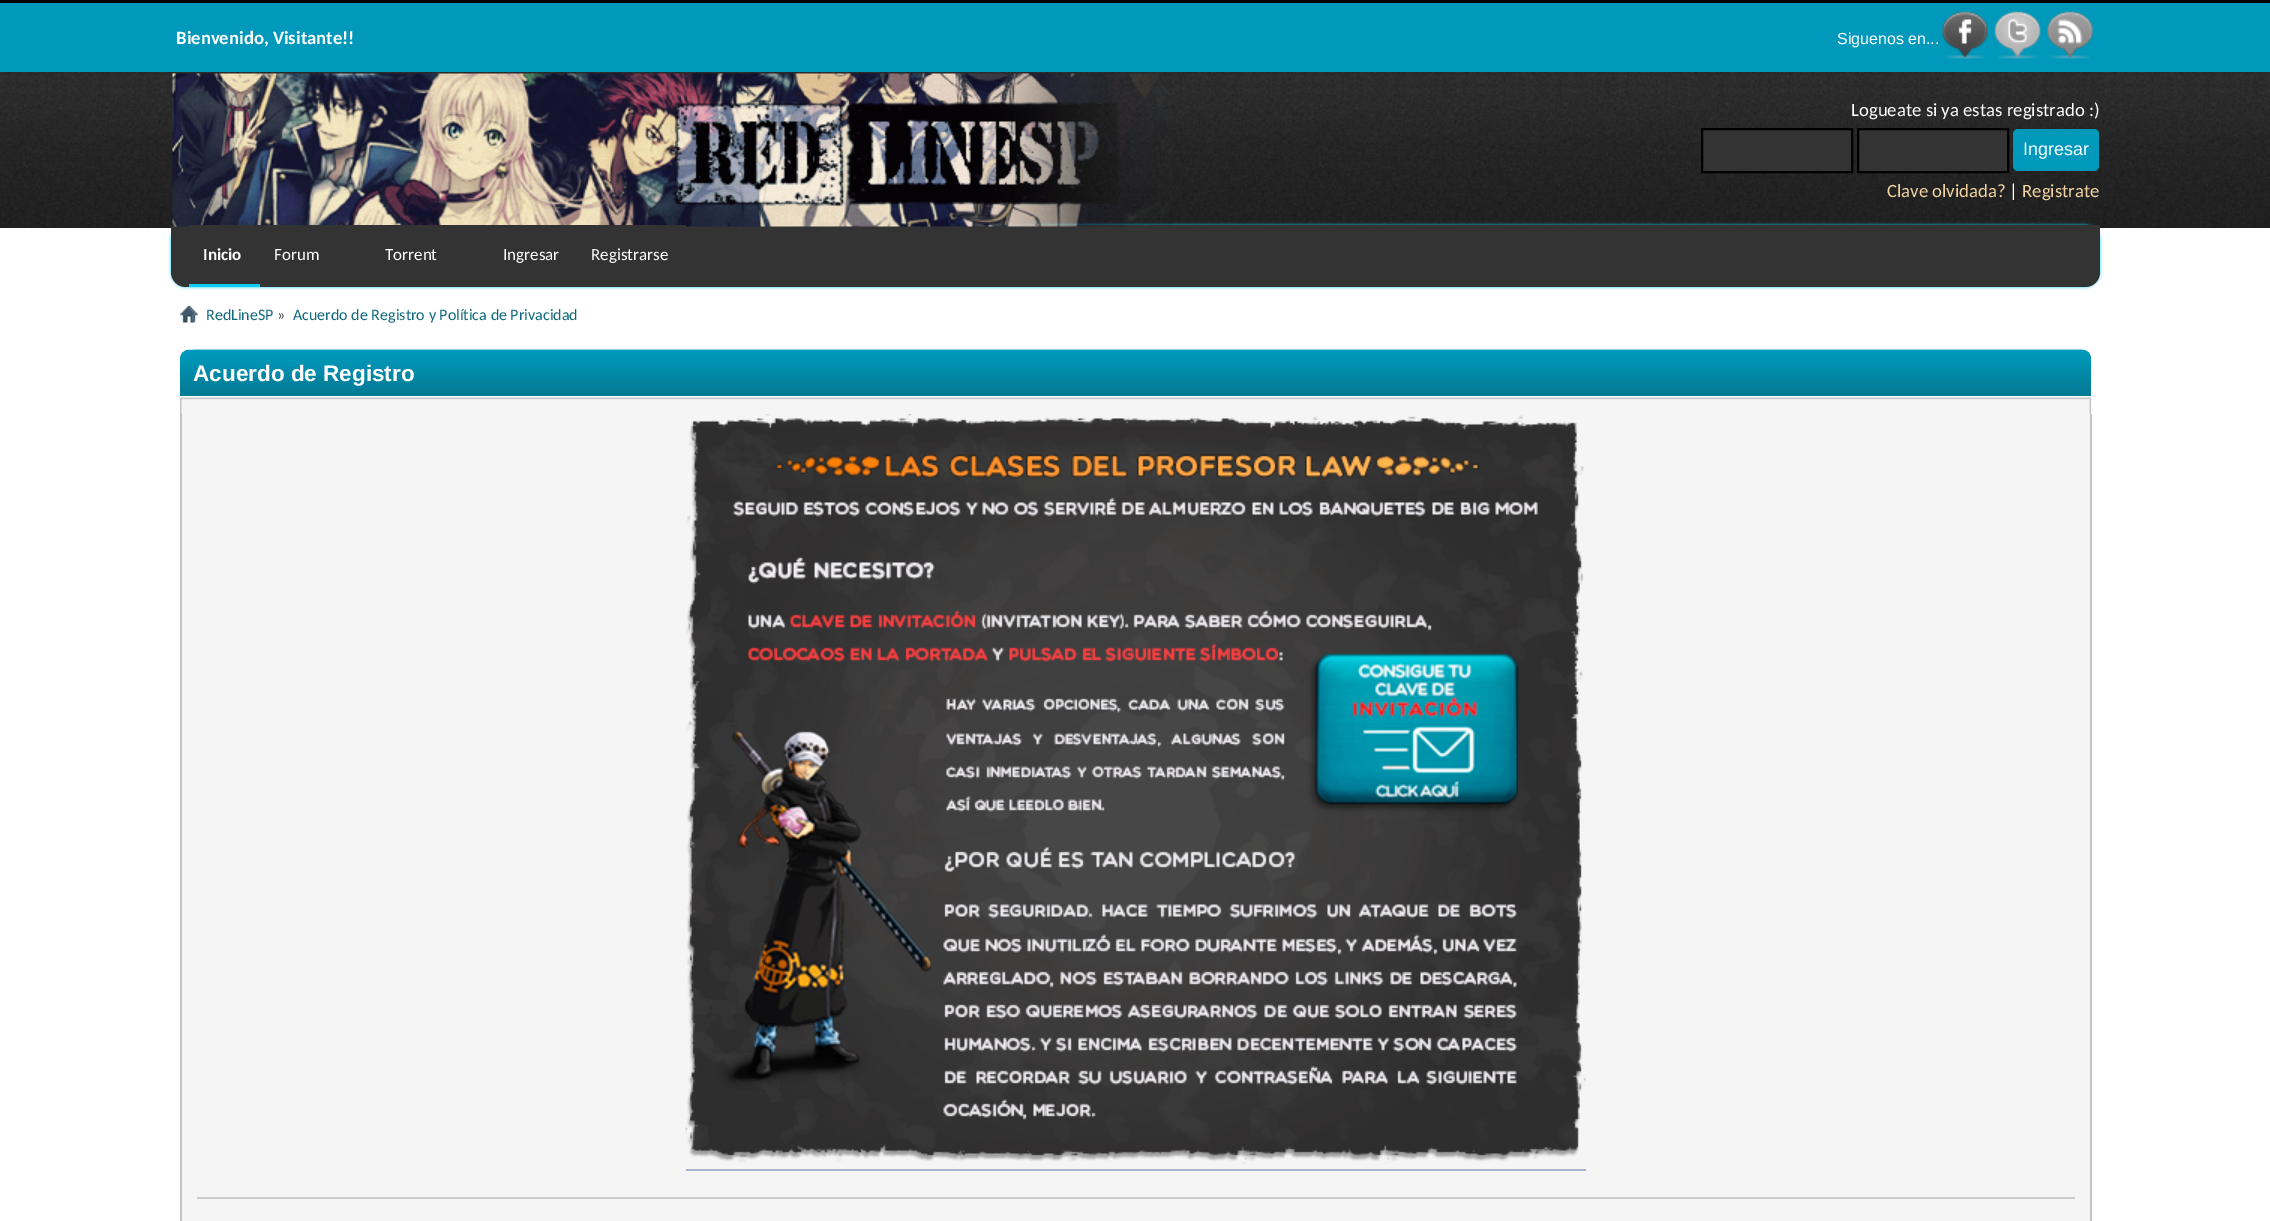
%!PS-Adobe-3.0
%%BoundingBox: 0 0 2270 1221
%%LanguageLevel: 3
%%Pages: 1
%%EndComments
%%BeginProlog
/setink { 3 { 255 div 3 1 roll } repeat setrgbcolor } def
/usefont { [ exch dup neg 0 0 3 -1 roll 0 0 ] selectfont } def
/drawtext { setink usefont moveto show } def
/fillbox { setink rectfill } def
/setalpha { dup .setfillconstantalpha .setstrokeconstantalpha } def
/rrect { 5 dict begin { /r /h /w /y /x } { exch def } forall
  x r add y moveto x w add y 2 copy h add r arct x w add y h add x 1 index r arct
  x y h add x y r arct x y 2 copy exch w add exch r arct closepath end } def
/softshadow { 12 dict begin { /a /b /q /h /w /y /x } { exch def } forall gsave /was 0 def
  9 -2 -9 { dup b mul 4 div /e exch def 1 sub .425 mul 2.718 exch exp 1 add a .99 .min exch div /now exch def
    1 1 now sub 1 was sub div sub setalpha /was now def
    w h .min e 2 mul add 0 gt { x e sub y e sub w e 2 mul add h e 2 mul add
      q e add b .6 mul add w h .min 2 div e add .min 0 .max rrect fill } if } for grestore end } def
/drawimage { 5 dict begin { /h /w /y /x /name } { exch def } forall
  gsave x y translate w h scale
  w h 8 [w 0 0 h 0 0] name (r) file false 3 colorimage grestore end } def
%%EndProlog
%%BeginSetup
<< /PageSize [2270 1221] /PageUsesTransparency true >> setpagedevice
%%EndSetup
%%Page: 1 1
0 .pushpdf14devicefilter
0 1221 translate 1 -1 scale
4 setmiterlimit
0 0 2270 1221 255 255 255 fillbox
0 3 2270 69 0 153 187 fillbox
0 0 2270 3 0 0 0 fillbox
(Bienvenido, Visitante!!) 176 44 /Carlito-Bold 18.75 255 255 255 drawtext
(Siguenos en...) 1837 44 /LiberationSans-Regular 16 255 255 255 drawtext
(assets/img1.rgb) 1942 11 46 48 drawimage
(assets/img2.rgb) 1994 11 47 48 drawimage
(assets/img3.rgb) 2047 11 46 48 drawimage
(assets/img4.rgb) 0 72 2270 156 drawimage
12 206 245 setink
171 225 1929 62 15 1.5 1 softshadow
51 51 51 setink
171 225 moveto 2100 225 lineto 2100 272 lineto 2100 280.5 2093.5 287 2085 287 curveto 186 287 lineto 177.5 287 171 280.5 171 272 curveto closepath fill
(assets/img5.rgb) 172 73 1000 154 drawimage
(Logueate si ya estas registrado :\)) 1851 116 /Carlito-Regular 18.75 255 255 255 drawtext
51 51 51 setink
1702 129 moveto 1852 129 lineto 1852 172 lineto 1702 172 lineto closepath gsave fill grestore
0 0 0 setink
2 setlinewidth
stroke
51 51 51 setink
1858 129 moveto 2008 129 lineto 2008 172 lineto 1858 172 lineto closepath gsave fill grestore
0 0 0 setink
stroke
0 153 187 setink
2013 129 86 42 5 rrect fill
(Ingresar) 2023 155 /LiberationSans-Regular 18 255 255 255 drawtext
(Clave olvidada?) 1887 197 /Carlito-Regular 18.75 240 211 160 drawtext
(|) 2009 197 /Carlito-Regular 18.75 255 255 255 drawtext
(Registrate) 2022 197 /Carlito-Regular 18.75 240 211 160 drawtext
189 225 497 2 51 51 51 fillbox
189 284 71 3 12 206 245 fillbox
(Inicio) 203 260 /Carlito-Bold 17 255 255 255 drawtext
(Forum) 274 260 /Carlito-Regular 17 255 255 255 drawtext
(Torrent) 385 260 /Carlito-Regular 17 255 255 255 drawtext
(Ingresar) 503 260 /Carlito-Regular 17 255 255 255 drawtext
(Registrarse) 591 260 /Carlito-Regular 17 255 255 255 drawtext
(assets/img6.rgb) 180 305 18 18 drawimage
(RedLineSP) 206 320 /Carlito-Regular 16 12 104 122 drawtext
(») 277 320 /Carlito-Regular 16 68 68 68 drawtext
(Acuerdo de Registro y Política de Privacidad) 293 320 /Carlito-Regular 16 12 104 122 drawtext
(assets/img7.rgb) 179 349 1913 47 drawimage
(assets/img8.rgb) 193 349 1898 47 drawimage
(Acuerdo de Registro) 193 381 /LiberationSans-Bold 22.5 255 255 255 drawtext
(assets/img9.rgb) 180 397 1911 17 drawimage
(assets/img10.rgb) 2089 398 2 16 drawimage
182 414 1908 807 245 245 245 fillbox
2090 414 2 807 197 197 197 fillbox
180 414 2 807 197 197 197 fillbox
(assets/img11.rgb) 685 414 901 750 drawimage
686 1169 900 2 168 182 207 fillbox
197 1197 1878 2 204 204 204 fillbox
.poppdf14devicefilter showpage
%%EOF
